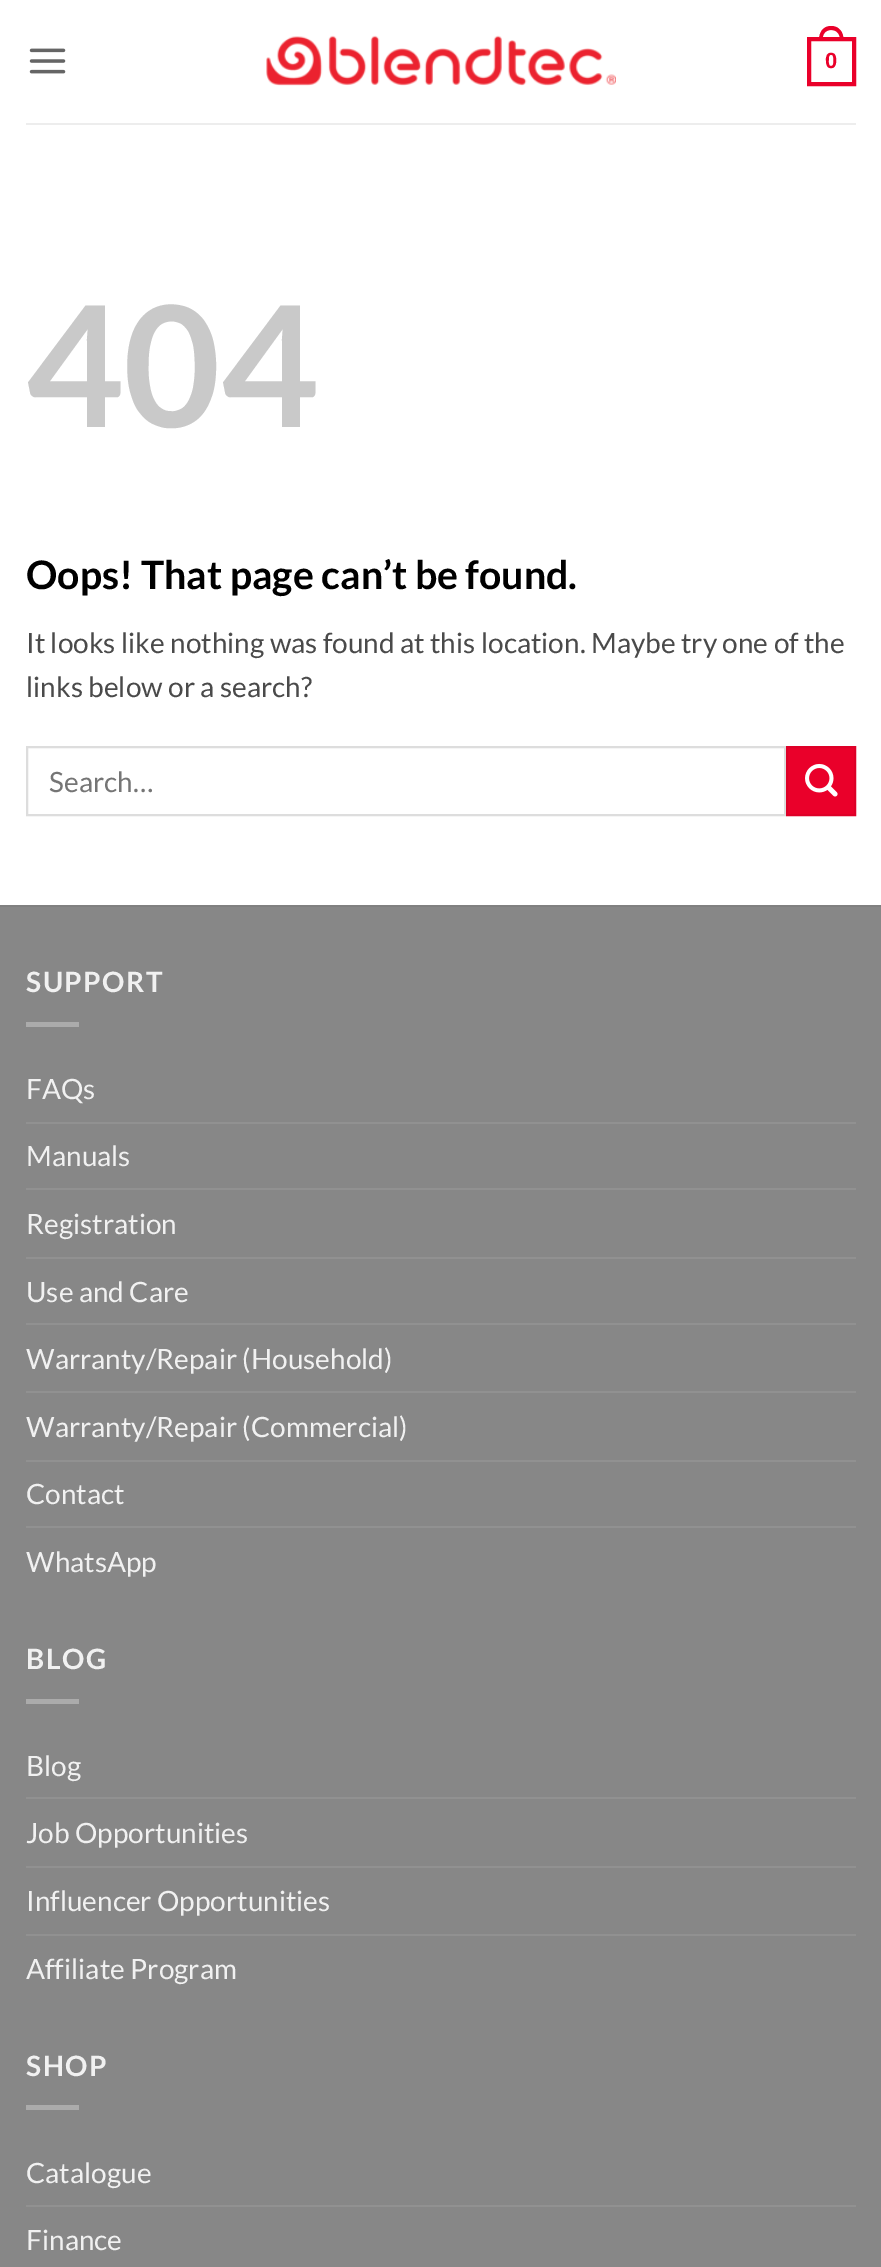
%!PS-Adobe-3.0
%%BoundingBox: 0 0 881 2267
%%LanguageLevel: 3
%%Pages: 1
%%EndComments
%%BeginProlog
/setink { 3 { 255 div 3 1 roll } repeat setrgbcolor } def
/usefont { [ exch dup neg 0 0 3 -1 roll 0 0 ] selectfont } def
/drawtext { setink usefont moveto show } def
/fillbox { setink rectfill } def
/drawimage { 5 dict begin { /h /w /y /x /name } { exch def } forall
  gsave x y translate w h scale
  w h 8 [w 0 0 h 0 0] name (r) file false 3 colorimage grestore end } def
%%EndProlog
%%BeginSetup
<< /PageSize [881 2267] >> setpagedevice
%%EndSetup
%%Page: 1 1
0 2267 translate 1 -1 scale
4 setmiterlimit
0 0 881 2267 255 255 255 fillbox
(assets/img1.rgb) 29 48 37 26 drawimage
(assets/img2.rgb) 266 35 350 51 drawimage
234 0 42 setink
4 setlinewidth
809 39 45 45 rectstroke
831 26 moveto 839.5 26 843.5 32.5 843.5 40 curveto 819 40 lineto 819 32.5 823 26 831 26 curveto closepath 831 30 moveto 837.5 30 840 34.5 840 40 curveto 822.5 40 lineto 822.5 34.5 825 30 831 30 curveto closepath eofill
(0) 825 68 /LiberationSans-Bold 22 234 0 42 drawtext
26 123 830 2 237 237 237 fillbox
(404) 26 427 /Lato-Bold 168 201 201 201 drawtext
(Oops! That page can’t be found.) 26 589 /Lato-Bold 39.25 0 0 0 drawtext
(It looks like nothing was found at this location. Maybe try one of the) 26 653 /Lato-Regular 28 74 74 74 drawtext
(links below or a search?) 26 697 /Lato-Regular 28 74 74 74 drawtext
221 221 221 setink
2 setlinewidth
27 747 758 68 rectstroke
(Search…) 49 792 /Lato-Regular 28 117 117 117 drawtext
234 0 42 setink
787 747 moveto 855 747 lineto 855 815 lineto 787 815 lineto closepath gsave fill grestore
222 0 40 setink
stroke
(assets/img3.rgb) 805 763 33 34 drawimage
0 907 881 1360 135 135 135 fillbox
0 905 881 2 128 128 128 fillbox
/Lato-Bold 28 usefont
241 241 241 setink
26 992 moveto 1.5 0 (SUPPORT) ashow
26 1022 53 5 171 171 171 fillbox
(FAQs) 26 1099 /Lato-Regular 28 241 241 241 drawtext
26 1122 830 2 145 145 145 fillbox
(Manuals) 26 1166 /Lato-Regular 28 241 241 241 drawtext
26 1188 830 2 145 145 145 fillbox
(Registration) 26 1234 /Lato-Regular 28 241 241 241 drawtext
26 1257 830 2 145 145 145 fillbox
(Use and Care) 26 1302 /Lato-Regular 28 241 241 241 drawtext
26 1323 830 2 145 145 145 fillbox
(Warranty/Repair \(Household\)) 26 1369 /Lato-Regular 28 241 241 241 drawtext
26 1391 830 2 145 145 145 fillbox
(Warranty/Repair \(Commercial\)) 26 1437 /Lato-Regular 28 241 241 241 drawtext
26 1460 830 2 145 145 145 fillbox
(Contact) 26 1504 /Lato-Regular 28 241 241 241 drawtext
26 1526 830 2 145 145 145 fillbox
(WhatsApp) 26 1572 /Lato-Regular 28 241 241 241 drawtext
/Lato-Bold 28 usefont
26 1669 moveto 1.5 0 (BLOG) ashow
26 1699 53 5 171 171 171 fillbox
(Blog) 26 1776 /Lato-Regular 28 241 241 241 drawtext
26 1797 830 2 145 145 145 fillbox
(Job Opportunities) 26 1843 /Lato-Regular 28 241 241 241 drawtext
26 1866 830 2 145 145 145 fillbox
(Influencer Opportunities) 26 1911 /Lato-Regular 28 241 241 241 drawtext
26 1934 830 2 145 145 145 fillbox
(Affiliate Program) 26 1979 /Lato-Regular 28 241 241 241 drawtext
/Lato-Bold 28 usefont
26 2076 moveto 1.5 0 (SHOP) ashow
26 2105 53 5 171 171 171 fillbox
(Catalogue) 26 2183 /Lato-Regular 28 241 241 241 drawtext
26 2205 830 2 145 145 145 fillbox
(Finance) 26 2250 /Lato-Regular 28 241 241 241 drawtext
showpage
%%EOF
